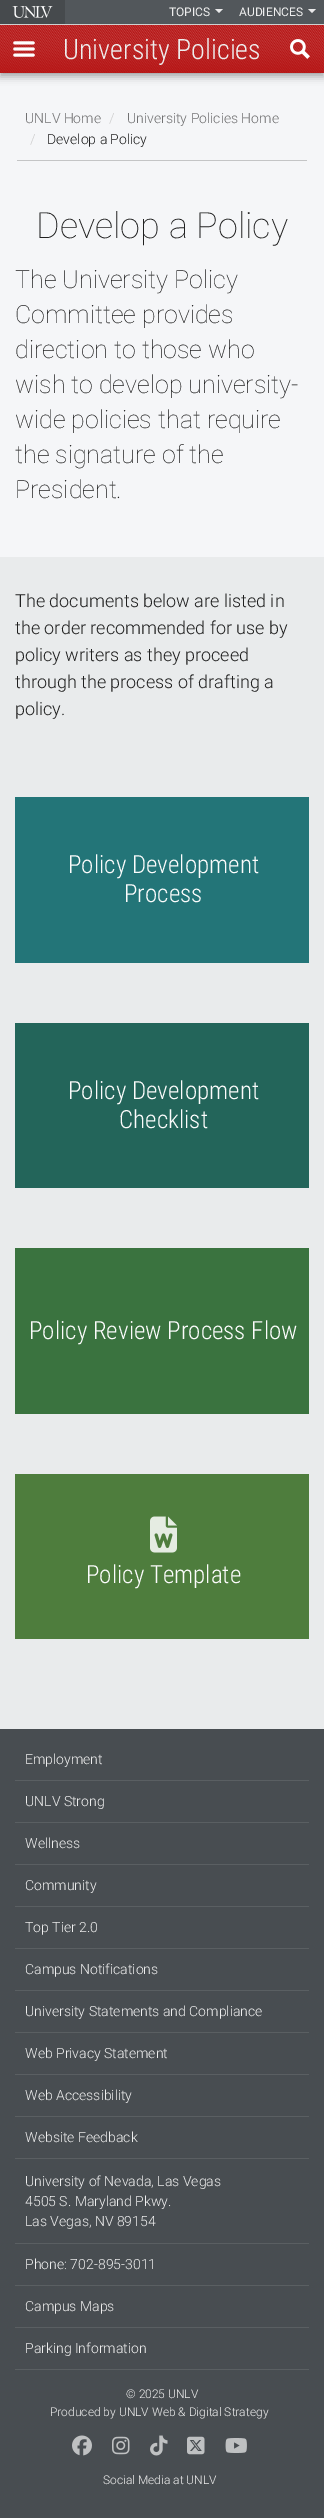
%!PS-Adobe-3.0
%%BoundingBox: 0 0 324 2518
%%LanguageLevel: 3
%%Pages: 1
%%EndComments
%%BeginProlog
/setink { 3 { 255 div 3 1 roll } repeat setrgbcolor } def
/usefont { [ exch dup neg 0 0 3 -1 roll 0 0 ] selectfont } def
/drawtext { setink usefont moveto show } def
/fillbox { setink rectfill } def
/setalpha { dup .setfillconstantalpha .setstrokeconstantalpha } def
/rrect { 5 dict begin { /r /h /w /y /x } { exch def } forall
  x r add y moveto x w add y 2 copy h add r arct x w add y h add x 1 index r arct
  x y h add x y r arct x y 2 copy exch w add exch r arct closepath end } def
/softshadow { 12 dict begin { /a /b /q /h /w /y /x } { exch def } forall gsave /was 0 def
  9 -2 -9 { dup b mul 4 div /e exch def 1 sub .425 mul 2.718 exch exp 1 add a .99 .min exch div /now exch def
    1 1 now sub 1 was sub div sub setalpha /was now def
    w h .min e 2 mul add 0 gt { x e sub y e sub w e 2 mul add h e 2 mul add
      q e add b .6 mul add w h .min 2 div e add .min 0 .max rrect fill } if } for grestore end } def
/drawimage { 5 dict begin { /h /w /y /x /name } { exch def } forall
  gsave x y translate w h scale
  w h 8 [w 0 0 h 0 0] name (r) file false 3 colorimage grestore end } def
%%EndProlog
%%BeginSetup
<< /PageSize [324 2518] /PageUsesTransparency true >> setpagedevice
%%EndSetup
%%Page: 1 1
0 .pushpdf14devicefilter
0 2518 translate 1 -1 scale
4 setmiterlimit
0 0 324 2518 72 77 81 fillbox
0 73 324 484 245 246 248 fillbox
0 0 0 setink
0 4 324 73 0 4 0.28 softshadow
0 0 324 73 0 2 0.14 softshadow
65 0 259 24 82 87 91 fillbox
0 24 324 1 207 208 208 fillbox
0 0 65 24 70 74 77 fillbox
(assets/img1.rgb) 12 6 41 12 drawimage
(TOPICS) 169 16 /Roboto-Regular 12 238 238 238 drawtext
233 233 234 setink
215 9 moveto 223 9 lineto 219 13 lineto closepath fill
(AUDIENCES) 239 16 /Roboto-Regular 12 238 238 238 drawtext
233 233 234 setink
308 9 moveto 316 9 lineto 312 13 lineto closepath fill
0 25 324 48 182 22 22 fillbox
(assets/img2.rgb) 0 25 324 48 drawimage
(assets/img3.rgb) 13 41 22 16 drawimage
(University Policies) 63 59 /RobotoCondensed-Light 28 238 238 238 drawtext
(assets/img4.rgb) 290 39 20 20 drawimage
17 160 290 1 196 197 198 fillbox
(UNLV Home) 25 123 /Roboto-Light 14 113 113 114 drawtext
(/) 109 123 /Roboto-Light 14 204 204 204 drawtext
(University Policies Home) 127 123 /Roboto-Light 14 113 113 114 drawtext
(/) 30 144 /Roboto-Light 14 204 204 204 drawtext
(Develop a Policy) 47 144 /Roboto-Light 14 32 32 32 drawtext
(Develop a Policy) 36 238 /Roboto-Thin 36 32 32 32 drawtext
(The University Policy) 15 288 /Roboto-Thin 25 32 32 32 drawtext
(Committee provides) 15 323 /Roboto-Thin 25 32 32 32 drawtext
(direction to those who) 15 358 /Roboto-Thin 25 32 32 32 drawtext
(wish to develop university-) 15 393 /Roboto-Thin 25 32 32 32 drawtext
(wide policies that require) 15 428 /Roboto-Thin 25 32 32 32 drawtext
(the signature of the) 15 463 /Roboto-Thin 25 32 32 32 drawtext
(President.) 15 498 /Roboto-Thin 25 32 32 32 drawtext
0 557 324 1172 233 235 236 fillbox
(The documents below are listed in) 15 607 /Roboto-Light 18 32 32 32 drawtext
(the order recommended for use by) 15 634 /Roboto-Light 18 32 32 32 drawtext
(policy writers as they proceed) 15 661 /Roboto-Light 18 32 32 32 drawtext
(through the process of drafting a) 15 688 /Roboto-Light 18 32 32 32 drawtext
(policy.) 15 715 /Roboto-Light 18 32 32 32 drawtext
15 797 294 166 35 117 120 fillbox
(Policy Development) 68 873 /RobotoCondensed-Light 25 252 252 252 drawtext
(Process) 124 902 /RobotoCondensed-Light 25 252 252 252 drawtext
15 1023 294 165 35 101 90 fillbox
(Policy Development) 68 1099 /RobotoCondensed-Light 25 252 252 252 drawtext
(Checklist) 119 1128 /RobotoCondensed-Light 25 252 252 252 drawtext
15 1248 294 166 58 115 63 fillbox
(Policy Review Process Flow) 29 1339 /RobotoCondensed-Light 25 252 252 252 drawtext
15 1474 294 165 78 125 61 fillbox
(assets/img5.rgb) 150 1516 27 37 drawimage
(Policy Template) 86 1583 /RobotoCondensed-Light 25 252 252 252 drawtext
15 1780 294 1 90 95 98 fillbox
(Employment) 25 1764 /Roboto-Light 14 238 238 238 drawtext
15 1822 294 1 90 95 98 fillbox
(UNLV Strong) 25 1806 /Roboto-Light 14 238 238 238 drawtext
15 1864 294 1 90 95 98 fillbox
(Wellness) 25 1848 /Roboto-Light 14 238 238 238 drawtext
15 1906 294 1 90 95 98 fillbox
(Community) 25 1890 /Roboto-Light 14 238 238 238 drawtext
15 1948 294 1 90 95 98 fillbox
(Top Tier 2.0) 25 1932 /Roboto-Light 14 238 238 238 drawtext
15 1990 294 1 90 95 98 fillbox
(Campus Notifications) 25 1974 /Roboto-Light 14 238 238 238 drawtext
15 2032 294 1 90 95 98 fillbox
(University Statements and Compliance) 25 2016 /Roboto-Light 14 238 238 238 drawtext
15 2074 294 1 90 95 98 fillbox
(Web Privacy Statement) 25 2058 /Roboto-Light 14 238 238 238 drawtext
15 2116 294 1 90 95 98 fillbox
(Web Accessibility) 25 2100 /Roboto-Light 14 238 238 238 drawtext
15 2158 294 1 90 95 98 fillbox
(Website Feedback) 25 2142 /Roboto-Light 14 238 238 238 drawtext
15 2243 294 1 90 95 98 fillbox
(University of Nevada, Las Vegas) 25 2186 /Roboto-Light 14 238 238 238 drawtext
(4505 S. Maryland Pkwy.) 25 2206 /Roboto-Light 14 238 238 238 drawtext
(Las Vegas, NV 89154) 25 2226 /Roboto-Light 14 238 238 238 drawtext
15 2285 294 1 90 95 98 fillbox
(Phone: 702-895-3011) 25 2269 /Roboto-Light 14 238 238 238 drawtext
15 2327 294 1 90 95 98 fillbox
(Campus Maps) 25 2311 /Roboto-Light 14 238 238 238 drawtext
15 2369 294 1 90 95 98 fillbox
(Parking Information) 25 2353 /Roboto-Light 14 238 238 238 drawtext
(© 2025 UNLV) 126 2398 /Roboto-Light 12 238 238 238 drawtext
(Produced by UNLV Web & Digital Strategy) 50 2416 /Roboto-Light 12 238 238 238 drawtext
(assets/img6.rgb) 72 2435 20 21 drawimage
(assets/img7.rgb) 112 2436 18 19 drawimage
(assets/img8.rgb) 150 2435 18 21 drawimage
(assets/img9.rgb) 187 2436 18 19 drawimage
(assets/img10.rgb) 225 2438 22 15 drawimage
(Social Media at UNLV) 103 2484 /Roboto-Light 12 238 238 238 drawtext
.poppdf14devicefilter showpage
%%EOF
